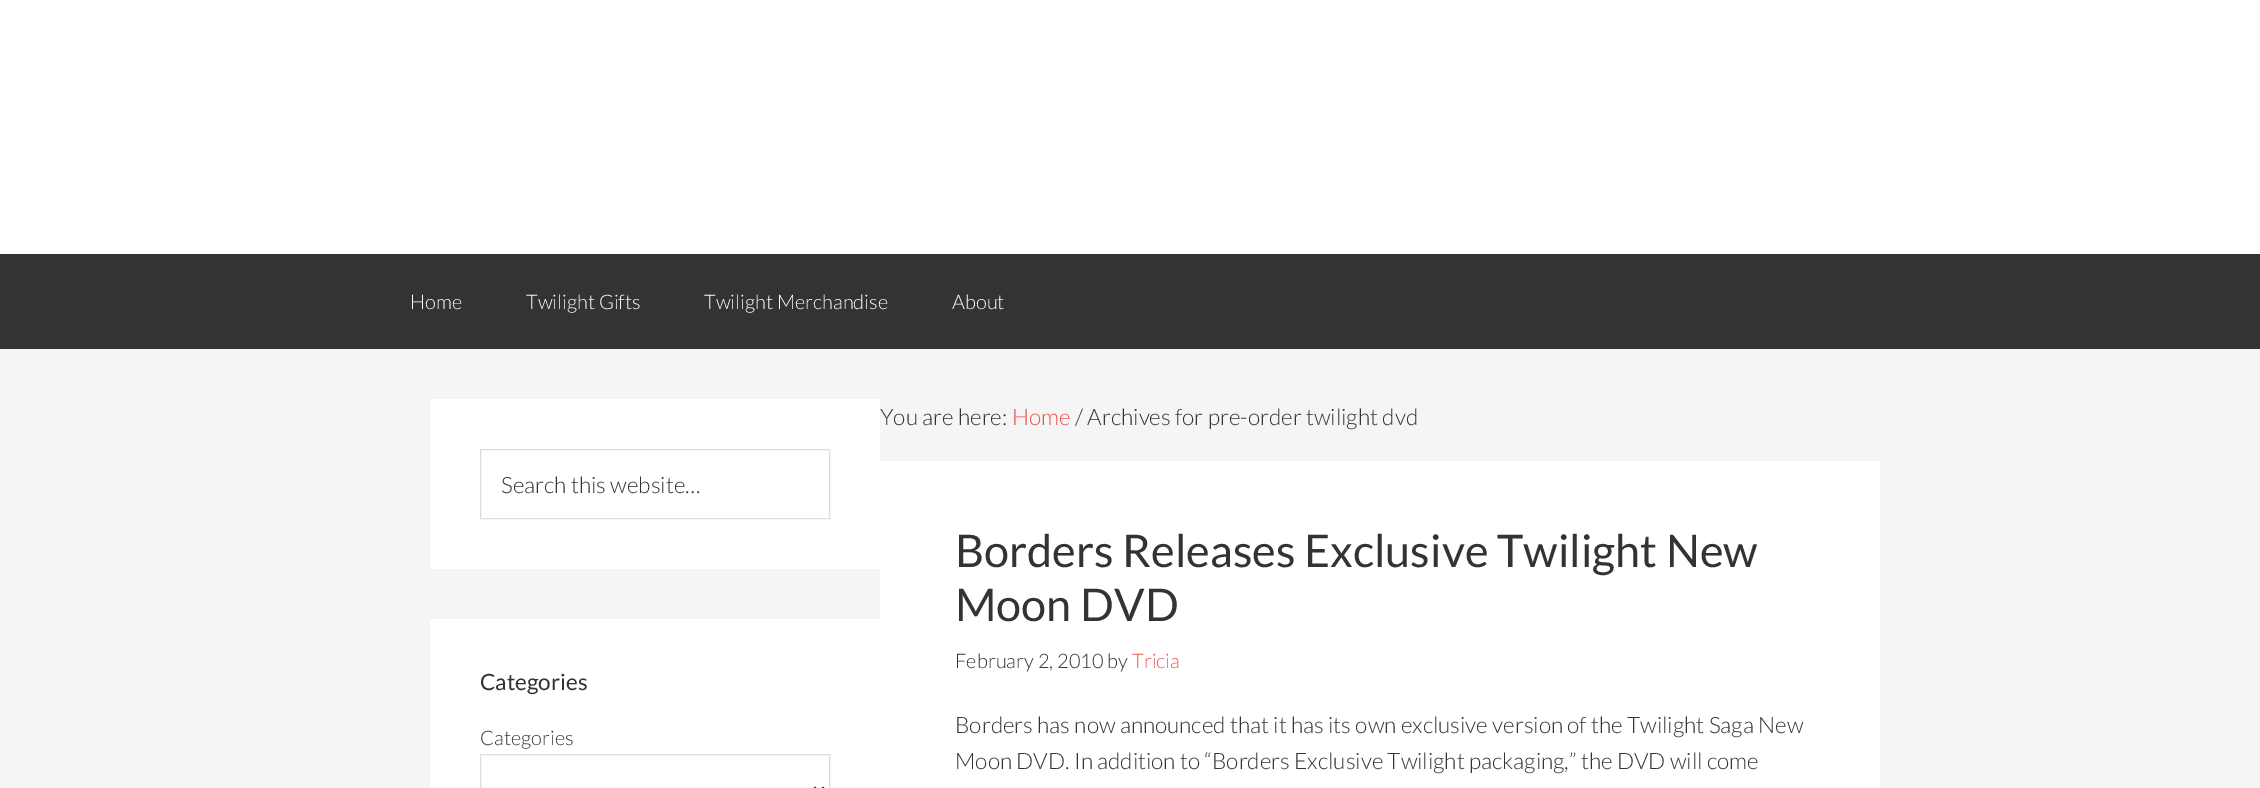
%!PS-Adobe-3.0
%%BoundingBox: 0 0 2260 788
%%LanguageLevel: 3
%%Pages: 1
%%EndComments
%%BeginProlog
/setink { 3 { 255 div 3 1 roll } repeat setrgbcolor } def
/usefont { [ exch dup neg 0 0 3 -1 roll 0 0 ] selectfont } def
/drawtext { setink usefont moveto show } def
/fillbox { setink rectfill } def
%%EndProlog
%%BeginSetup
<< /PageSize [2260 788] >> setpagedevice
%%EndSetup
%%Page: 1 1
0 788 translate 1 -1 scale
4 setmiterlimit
0 0 2260 788 245 245 245 fillbox
0 0 2260 254 255 255 255 fillbox
0 254 2260 95 51 51 51 fillbox
(Home) 410 309 /Lato-Light 20 255 255 255 drawtext
(Twilight Gifts) 526 309 /Lato-Light 20 255 255 255 drawtext
(Twilight Merchandise) 704 309 /Lato-Light 20 255 255 255 drawtext
(About) 952 309 /Lato-Light 20 255 255 255 drawtext
430 399 450 170 255 255 255 fillbox
221 221 221 setink
480.5 449.5 349 69 rectstroke
(Search this website…) 501 493 /Lato-Light 22.5 51 51 51 drawtext
430 619 450 169 255 255 255 fillbox
(Categories) 480 690 /Lato-Regular 22.5 51 51 51 drawtext
(Categories) 480 745 /Lato-Light 20 51 51 51 drawtext
221 221 221 setink
480.5 754.5 349 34 rectstroke
51 51 51 setink
2.5 setlinewidth
814 787.5 moveto 819 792.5 lineto 824 787.5 lineto stroke
(You are here:) 880 425 /Lato-Light 22.5 51 51 51 drawtext
(Home) 1012 425 /Lato-Light 22.5 229 85 78 drawtext
(/ Archives for pre-order twilight dvd) 1075 425 /Lato-Light 22.5 51 51 51 drawtext
880 461 1000 327 255 255 255 fillbox
(Borders Releases Exclusive Twilight New) 955 567 /Lato-Regular 45 51 51 51 drawtext
(Moon DVD) 955 621 /Lato-Regular 45 51 51 51 drawtext
(February 2, 2010 by) 955 668 /Lato-Light 20 51 51 51 drawtext
(Tricia) 1132 668 /Lato-Light 20 229 85 78 drawtext
(Borders has now announced that it has its own exclusive version of the Twilight Saga New) 955 733 /Lato-Light 22.5 51 51 51 drawtext
(Moon DVD. In addition to “Borders Exclusive Twilight packaging,” the DVD will come) 955 769 /Lato-Light 22.5 51 51 51 drawtext
showpage
%%EOF
